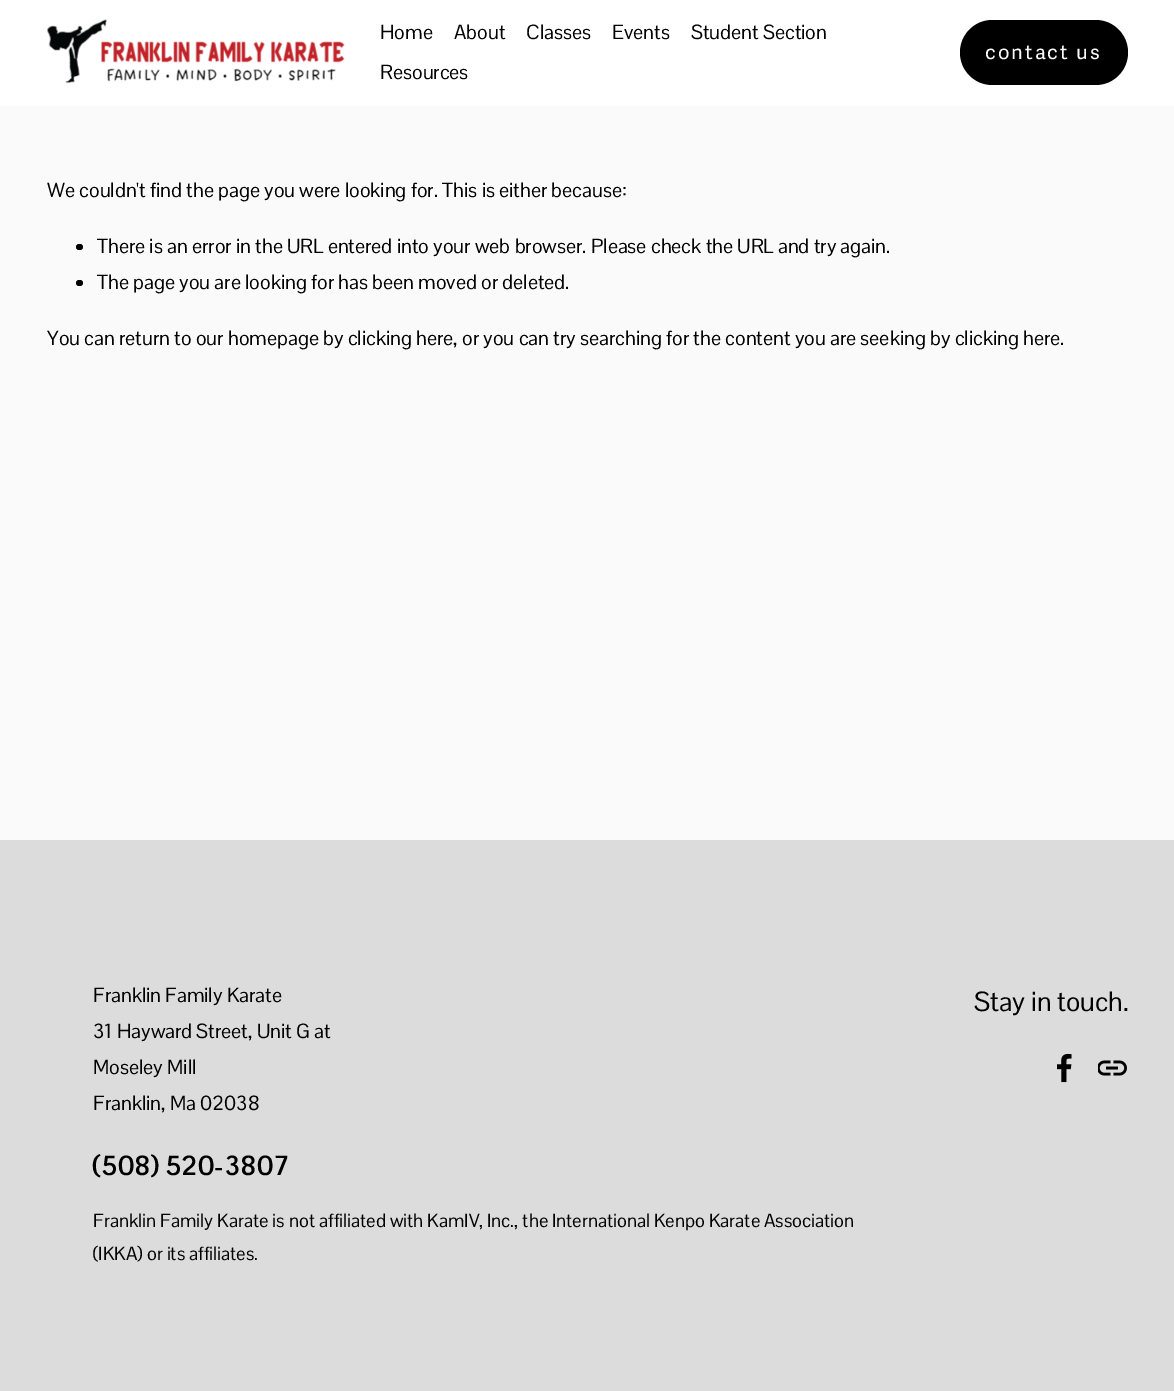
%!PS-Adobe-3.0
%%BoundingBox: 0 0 1174 1391
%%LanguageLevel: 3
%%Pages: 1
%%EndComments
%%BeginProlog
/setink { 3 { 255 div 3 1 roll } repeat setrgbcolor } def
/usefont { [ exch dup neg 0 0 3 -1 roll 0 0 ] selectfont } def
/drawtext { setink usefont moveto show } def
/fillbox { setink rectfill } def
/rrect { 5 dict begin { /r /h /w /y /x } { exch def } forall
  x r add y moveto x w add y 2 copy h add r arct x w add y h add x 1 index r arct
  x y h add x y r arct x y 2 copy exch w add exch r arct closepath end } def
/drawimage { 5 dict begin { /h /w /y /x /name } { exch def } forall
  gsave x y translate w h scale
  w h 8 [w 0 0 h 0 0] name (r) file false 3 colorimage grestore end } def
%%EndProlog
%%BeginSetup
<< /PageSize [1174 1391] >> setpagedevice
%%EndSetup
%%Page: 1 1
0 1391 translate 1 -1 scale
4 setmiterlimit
0 0 1174 1391 250 250 250 fillbox
0 0 1174 106 255 255 255 fillbox
(assets/img1.rgb) 47 19 298 65 drawimage
(Home) 380 39 /PontanoSans-Regular 20 0 0 0 drawtext
(About) 454 39 /PontanoSans-Regular 20 0 0 0 drawtext
(Classes) 526 39 /PontanoSans-Regular 20 0 0 0 drawtext
(Events) 612 39 /PontanoSans-Regular 20 0 0 0 drawtext
(Student Section) 691 39 /PontanoSans-Regular 20 0 0 0 drawtext
(Resources) 380 79 /PontanoSans-Regular 20 0 0 0 drawtext
960 20 168 65 32.5 rrect fill
/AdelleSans-Regular 20 usefont
250 250 250 setink
985 59 moveto 2 0 (contact us) ashow
(We couldn't find the page you were looking for. This is either because:) 47 197 /PontanoSans-Regular 20 0 0 0 drawtext
76 244 7 6 3 rrect fill
(There is an error in the URL entered into your web browser. Please check the URL and try again.) 97 253 /PontanoSans-Regular 20 0 0 0 drawtext
76 280 7 6 3 rrect fill
(The page you are looking for has been moved or deleted.) 97 289 /PontanoSans-Regular 20 0 0 0 drawtext
(You can return to our homepage by clicking here, or you can try searching for the content you are seeking by clicking here.) 47 345 /PontanoSans-Regular 20 0 0 0 drawtext
0 840 1174 551 220 220 220 fillbox
(Franklin Family Karate) 93 1002 /PontanoSans-Regular 20 0 0 0 drawtext
(31 Hayward Street, Unit G at) 93 1038 /PontanoSans-Regular 20 0 0 0 drawtext
(Moseley Mill) 93 1074 /PontanoSans-Regular 20 0 0 0 drawtext
(Franklin, Ma 02038) 93 1110 /PontanoSans-Regular 20 0 0 0 drawtext
(\(508\) 520-3807) 93 1175 /PontanoSans-Bold 27 0 0 0 drawtext
(Stay in touch.) 974 1011 /PontanoSans-Regular 27 0 0 0 drawtext
(assets/img2.rgb) 1057 1053 15 30 drawimage
(assets/img3.rgb) 1098 1060 29 16 drawimage
(Franklin Family Karate is not affiliated with KamIV, Inc., the International Kenpo Karate Association) 93 1227 /PontanoSans-Regular 18.6 0 0 0 drawtext
(\(IKKA\) or its affiliates.) 93 1260 /PontanoSans-Regular 18.6 0 0 0 drawtext
showpage
%%EOF
